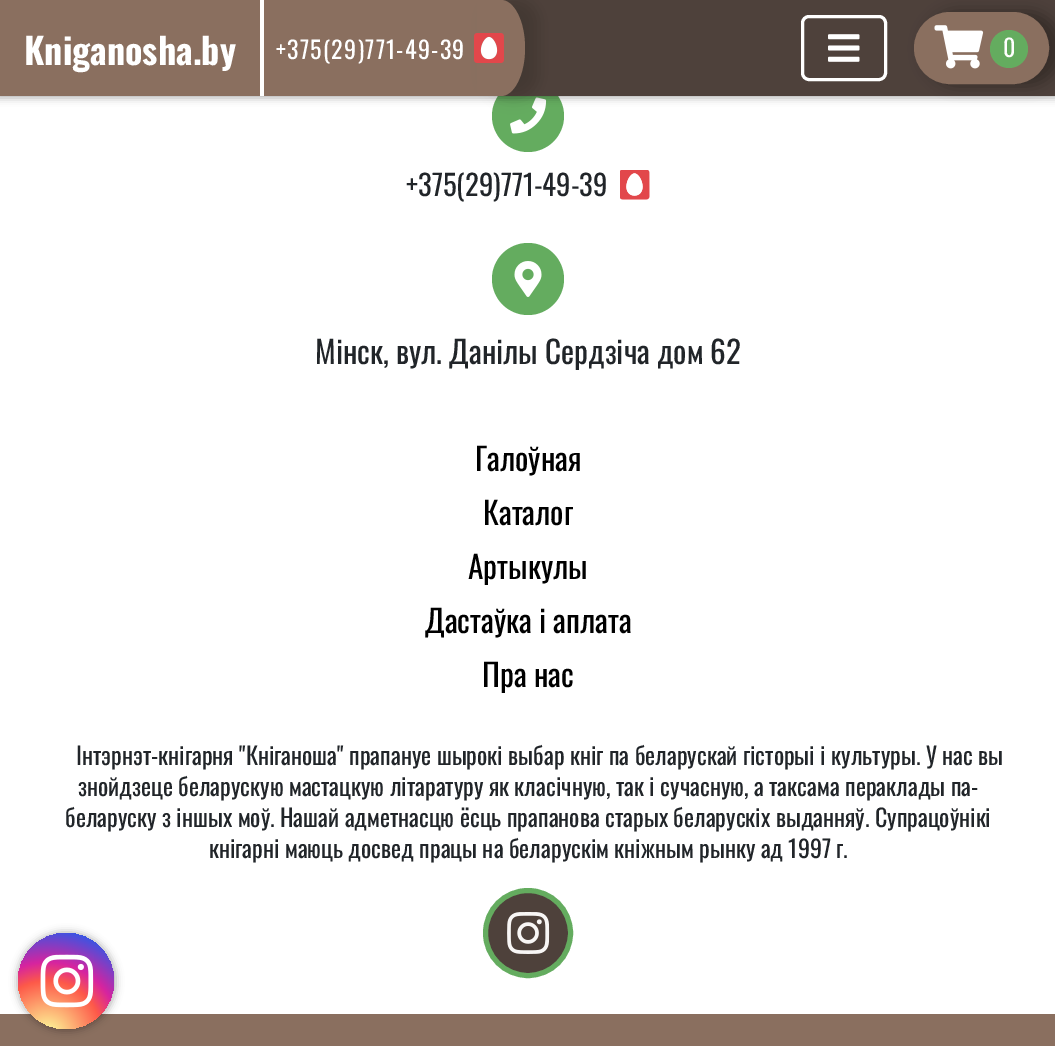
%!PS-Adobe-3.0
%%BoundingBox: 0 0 1055 1046
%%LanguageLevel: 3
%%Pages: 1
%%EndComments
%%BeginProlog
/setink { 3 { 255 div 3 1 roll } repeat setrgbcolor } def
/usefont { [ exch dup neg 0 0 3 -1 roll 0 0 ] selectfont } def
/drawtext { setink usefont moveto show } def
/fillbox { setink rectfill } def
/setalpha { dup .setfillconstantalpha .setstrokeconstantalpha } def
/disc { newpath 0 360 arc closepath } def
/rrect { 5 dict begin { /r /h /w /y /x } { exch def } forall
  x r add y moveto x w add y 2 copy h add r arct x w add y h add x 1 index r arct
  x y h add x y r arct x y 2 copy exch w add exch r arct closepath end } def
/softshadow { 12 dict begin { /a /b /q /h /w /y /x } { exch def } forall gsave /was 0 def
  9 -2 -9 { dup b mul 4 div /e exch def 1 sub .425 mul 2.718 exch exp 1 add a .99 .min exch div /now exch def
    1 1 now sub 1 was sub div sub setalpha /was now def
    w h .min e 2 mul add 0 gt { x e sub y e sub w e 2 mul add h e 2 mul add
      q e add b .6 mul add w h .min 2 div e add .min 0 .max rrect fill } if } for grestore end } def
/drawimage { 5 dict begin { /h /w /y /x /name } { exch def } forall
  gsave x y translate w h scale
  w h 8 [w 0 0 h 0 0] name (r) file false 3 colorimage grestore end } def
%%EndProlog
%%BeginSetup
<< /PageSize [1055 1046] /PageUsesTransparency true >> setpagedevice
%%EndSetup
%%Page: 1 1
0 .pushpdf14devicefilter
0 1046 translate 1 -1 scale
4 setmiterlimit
0 0 1055 1046 255 255 255 fillbox
100 172 95 setink
528 116 36 disc fill
(assets/img4.rgb) 510 97 37 37 drawimage
0 0 0 setink
-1 -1 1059 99 0 4 0.3 softshadow
501 0 554 96 78 65 59 fillbox
0 0 260 96 138 111 95 fillbox
260 0 4 96 255 255 255 fillbox
(Kniganosha.by) 24 65 /Oswald-Bold 36 255 255 255 drawtext
264 0 213 96 138 111 95 fillbox
/Oswald-Regular 24 usefont
255 255 255 setink
276 59 moveto 1.25 0 (+375\(29\)771-49-39) ashow
0 0 0 setink
488 -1 51 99 25.5 7.5 0.14 softshadow
138 111 95 setink
477 0 moveto 501 0 lineto 514 0 525 21 525 48 curveto 525 75 514 96 501 96 curveto 477 96 lineto closepath 477 48 moveto closepath eofill
(assets/img1.rgb) 474 33 30 30 drawimage
255 255 255 setink
3 setlinewidth
802.5 16.5 83 63 6.5 rrect stroke
(assets/img2.rgb) 828 34 32 28 drawimage
0 0 0 setink
924 11 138 75 37.5 7.5 0.3 softshadow
138 111 95 setink
916.5 14.5 130 67 33.5 rrect gsave fill grestore
5 setlinewidth
stroke
(assets/img3.rgb) 934 25 50 44 drawimage
100 172 95 setink
1009 49 19 disc fill
(0) 1003 57 /Oswald-Regular 24 255 255 255 drawtext
(+375\(29\)771-49-39) 406 196 /Oswald-Regular 28.75 33 37 41 drawtext
(assets/img5.rgb) 620 170 30 30 drawimage
100 172 95 setink
528 279 36 disc fill
(assets/img6.rgb) 514 261 28 36 drawimage
(Мінск, вул. Данілы Сердзіча дом 62) 315 364 /Oswald-Regular 31.25 33 37 41 drawtext
(Галоўная) 475 471 /Oswald-Regular 31.25 0 0 0 drawtext
(Каталог) 483 525 /Oswald-Regular 31.25 0 0 0 drawtext
(Артыкулы) 468 579 /Oswald-Regular 31.25 0 0 0 drawtext
(Дастаўка і аплата) 425 633 /Oswald-Regular 31.25 0 0 0 drawtext
(Пра нас) 482 687 /Oswald-Regular 31.25 0 0 0 drawtext
(Інтэрнэт-кнігарня "Кніганоша" прапануе шырокі выбар кніг па беларускай гісторыі і культуры. У нас вы) 76 765 /Oswald-Regular 24 33 37 41 drawtext
(знойдзеце беларускую мастацкую літаратуру як класічную, так і сучасную, а таксама пераклады па-) 78 796 /Oswald-Regular 24 33 37 41 drawtext
(беларуску з іншых моў. Нашай адметнасцю ёсць прапанова старых беларускіх выданняў. Супрацоўнікі) 65 827 /Oswald-Regular 24 33 37 41 drawtext
(кнігарні маюць досвед працы на беларускім кніжным рынку ад 1997 г.) 209 858 /Oswald-Regular 24 33 37 41 drawtext
78 65 59 setink
528 933 42.5 disc gsave fill grestore
100 172 95 setink
stroke
(assets/img7.rgb) 507 912 43 42 drawimage
0 1014 1055 32 138 111 95 fillbox
0 0 0 setink
17 932 99 99 49.5 4 0.3 softshadow
gsave 66 981 48 disc clip newpath 47 1036 translate 123 123 scale
<< /ShadingType 3 /ColorSpace /DeviceRGB /Coords [0 0 0 0 0 1] /Extend [true true] /Function << /FunctionType 3 /Domain [0 1] /Functions [<< /FunctionType 2 /Domain [0 1] /C0 [0.992 0.957 0.592] /C1 [0.992 0.957 0.592] /N 1 >> << /FunctionType 2 /Domain [0 1] /C0 [0.992 0.957 0.592] /C1 [0.992 0.349 0.286] /N 1 >> << /FunctionType 2 /Domain [0 1] /C0 [0.992 0.349 0.286] /C1 [0.839 0.141 0.624] /N 1 >> << /FunctionType 2 /Domain [0 1] /C0 [0.839 0.141 0.624] /C1 [0.157 0.353 0.922] /N 1 >> << /FunctionType 2 /Domain [0 1] /C0 [0.157 0.353 0.922] /C1 [0.157 0.353 0.922] /N 1 >>] /Bounds [0.05 0.45 0.6 0.9] /Encode [0 1 0 1 0 1 0 1 0 1] >> >> shfill grestore
(assets/img8.rgb) 40 954 54 54 drawimage
.poppdf14devicefilter showpage
%%EOF
